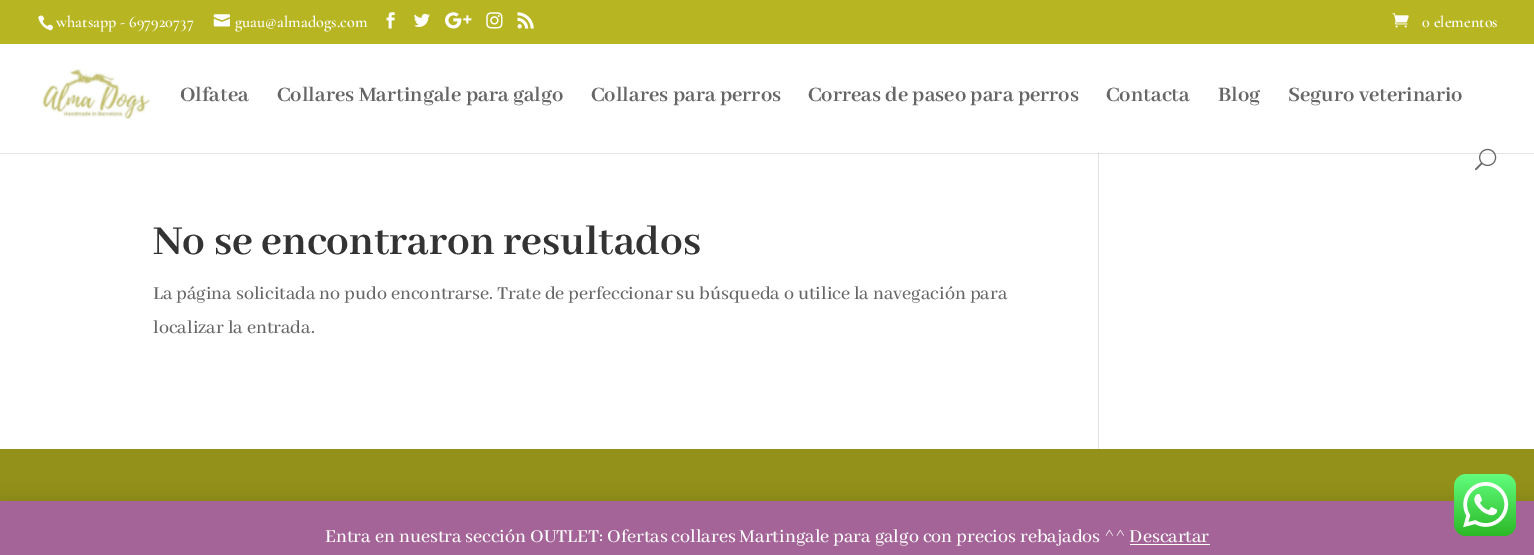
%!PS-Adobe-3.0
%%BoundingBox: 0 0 1534 555
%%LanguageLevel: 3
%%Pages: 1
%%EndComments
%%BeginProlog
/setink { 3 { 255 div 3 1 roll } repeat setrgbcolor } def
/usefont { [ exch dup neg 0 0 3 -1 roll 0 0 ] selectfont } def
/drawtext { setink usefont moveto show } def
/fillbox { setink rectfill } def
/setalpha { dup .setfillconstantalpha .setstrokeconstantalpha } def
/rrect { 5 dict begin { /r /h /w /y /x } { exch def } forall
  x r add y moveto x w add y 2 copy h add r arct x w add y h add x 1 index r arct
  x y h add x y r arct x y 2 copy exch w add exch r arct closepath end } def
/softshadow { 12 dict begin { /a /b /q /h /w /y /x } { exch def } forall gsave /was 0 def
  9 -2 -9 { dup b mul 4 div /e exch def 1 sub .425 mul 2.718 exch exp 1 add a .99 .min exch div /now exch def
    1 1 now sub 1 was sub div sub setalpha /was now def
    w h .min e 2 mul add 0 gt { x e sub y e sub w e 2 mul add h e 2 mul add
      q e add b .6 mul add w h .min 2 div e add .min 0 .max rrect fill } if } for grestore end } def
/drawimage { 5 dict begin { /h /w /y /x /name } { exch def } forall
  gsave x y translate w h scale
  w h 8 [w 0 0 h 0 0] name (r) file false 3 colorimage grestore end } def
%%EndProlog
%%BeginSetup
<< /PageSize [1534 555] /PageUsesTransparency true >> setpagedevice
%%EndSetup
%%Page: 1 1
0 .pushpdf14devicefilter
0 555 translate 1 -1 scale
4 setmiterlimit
0 0 1534 555 255 255 255 fillbox
0 153 1534 1 230 230 230 fillbox
0 0 1534 44 183 181 33 fillbox
(assets/img1.rgb) 38 15 15 16 drawimage
(whatsapp - 697920737) 56 27 /CormorantGaramond-SemiBold 16.25 255 255 255 drawtext
(assets/img2.rgb) 213 14 17 13 drawimage
(guau@almadogs.com) 235 27 /CormorantGaramond-SemiBold 16.25 255 255 255 drawtext
(assets/img3.rgb) 386 12 9 17 drawimage
(assets/img4.rgb) 414 13 16 14 drawimage
(assets/img5.rgb) 445 12 27 17 drawimage
(assets/img6.rgb) 486 12 17 17 drawimage
(assets/img7.rgb) 517 12 17 17 drawimage
(assets/img8.rgb) 1392 13 17 15 drawimage
(0 elementos) 1422 27 /CormorantGaramond-SemiBold 16.25 255 255 255 drawtext
1098 148 1 301 226 226 226 fillbox
1098 152 1 2 203 203 203 fillbox
1098 148 1 5 255 255 255 fillbox
(assets/img9.rgb) 41 68 109 52 drawimage
(Olfatea) 180 101 /AbhayaLibre-Bold 22.5 102 102 102 drawtext
(Collares Martingale para galgo) 277 101 /AbhayaLibre-Bold 22.5 102 102 102 drawtext
(Collares para perros) 591 101 /AbhayaLibre-Bold 22.5 102 102 102 drawtext
(Correas de paseo para perros) 808 101 /AbhayaLibre-Bold 22.5 102 102 102 drawtext
(Contacta) 1106 101 /AbhayaLibre-Bold 22.5 102 102 102 drawtext
(Blog) 1218 101 /AbhayaLibre-Bold 22.5 102 102 102 drawtext
(Seguro veterinario) 1288 101 /AbhayaLibre-Bold 22.5 102 102 102 drawtext
(assets/img10.rgb) 1475 148 22 23 drawimage
(No se encontraron resultados) 153 254 /AbhayaLibre-Bold 45 51 51 51 drawtext
(La página solicitada no pudo encontrarse. Trate de perfeccionar su búsqueda o utilice la navegación para) 153 299 /AbhayaLibreMedium-Medium 20 102 102 102 drawtext
(localizar la entrada.) 153 333 /AbhayaLibreMedium-Medium 20 102 102 102 drawtext
0 449 1534 52 147 145 25 fillbox
0 0 0 setink
0 503 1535 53 0 10 0.2 softshadow
0 501 1534 54 164 100 151 fillbox
(Entra en nuestra sección OUTLET: Ofertas collares Martingale para galgo con precios rebajados ^^ Descartar) 325 542 /AbhayaLibreMedium-Medium 20 255 255 255 drawtext
1130 544 80 1 255 255 255 fillbox
(assets/img11.rgb) 1454 474 62 62 drawimage
.poppdf14devicefilter showpage
%%EOF
